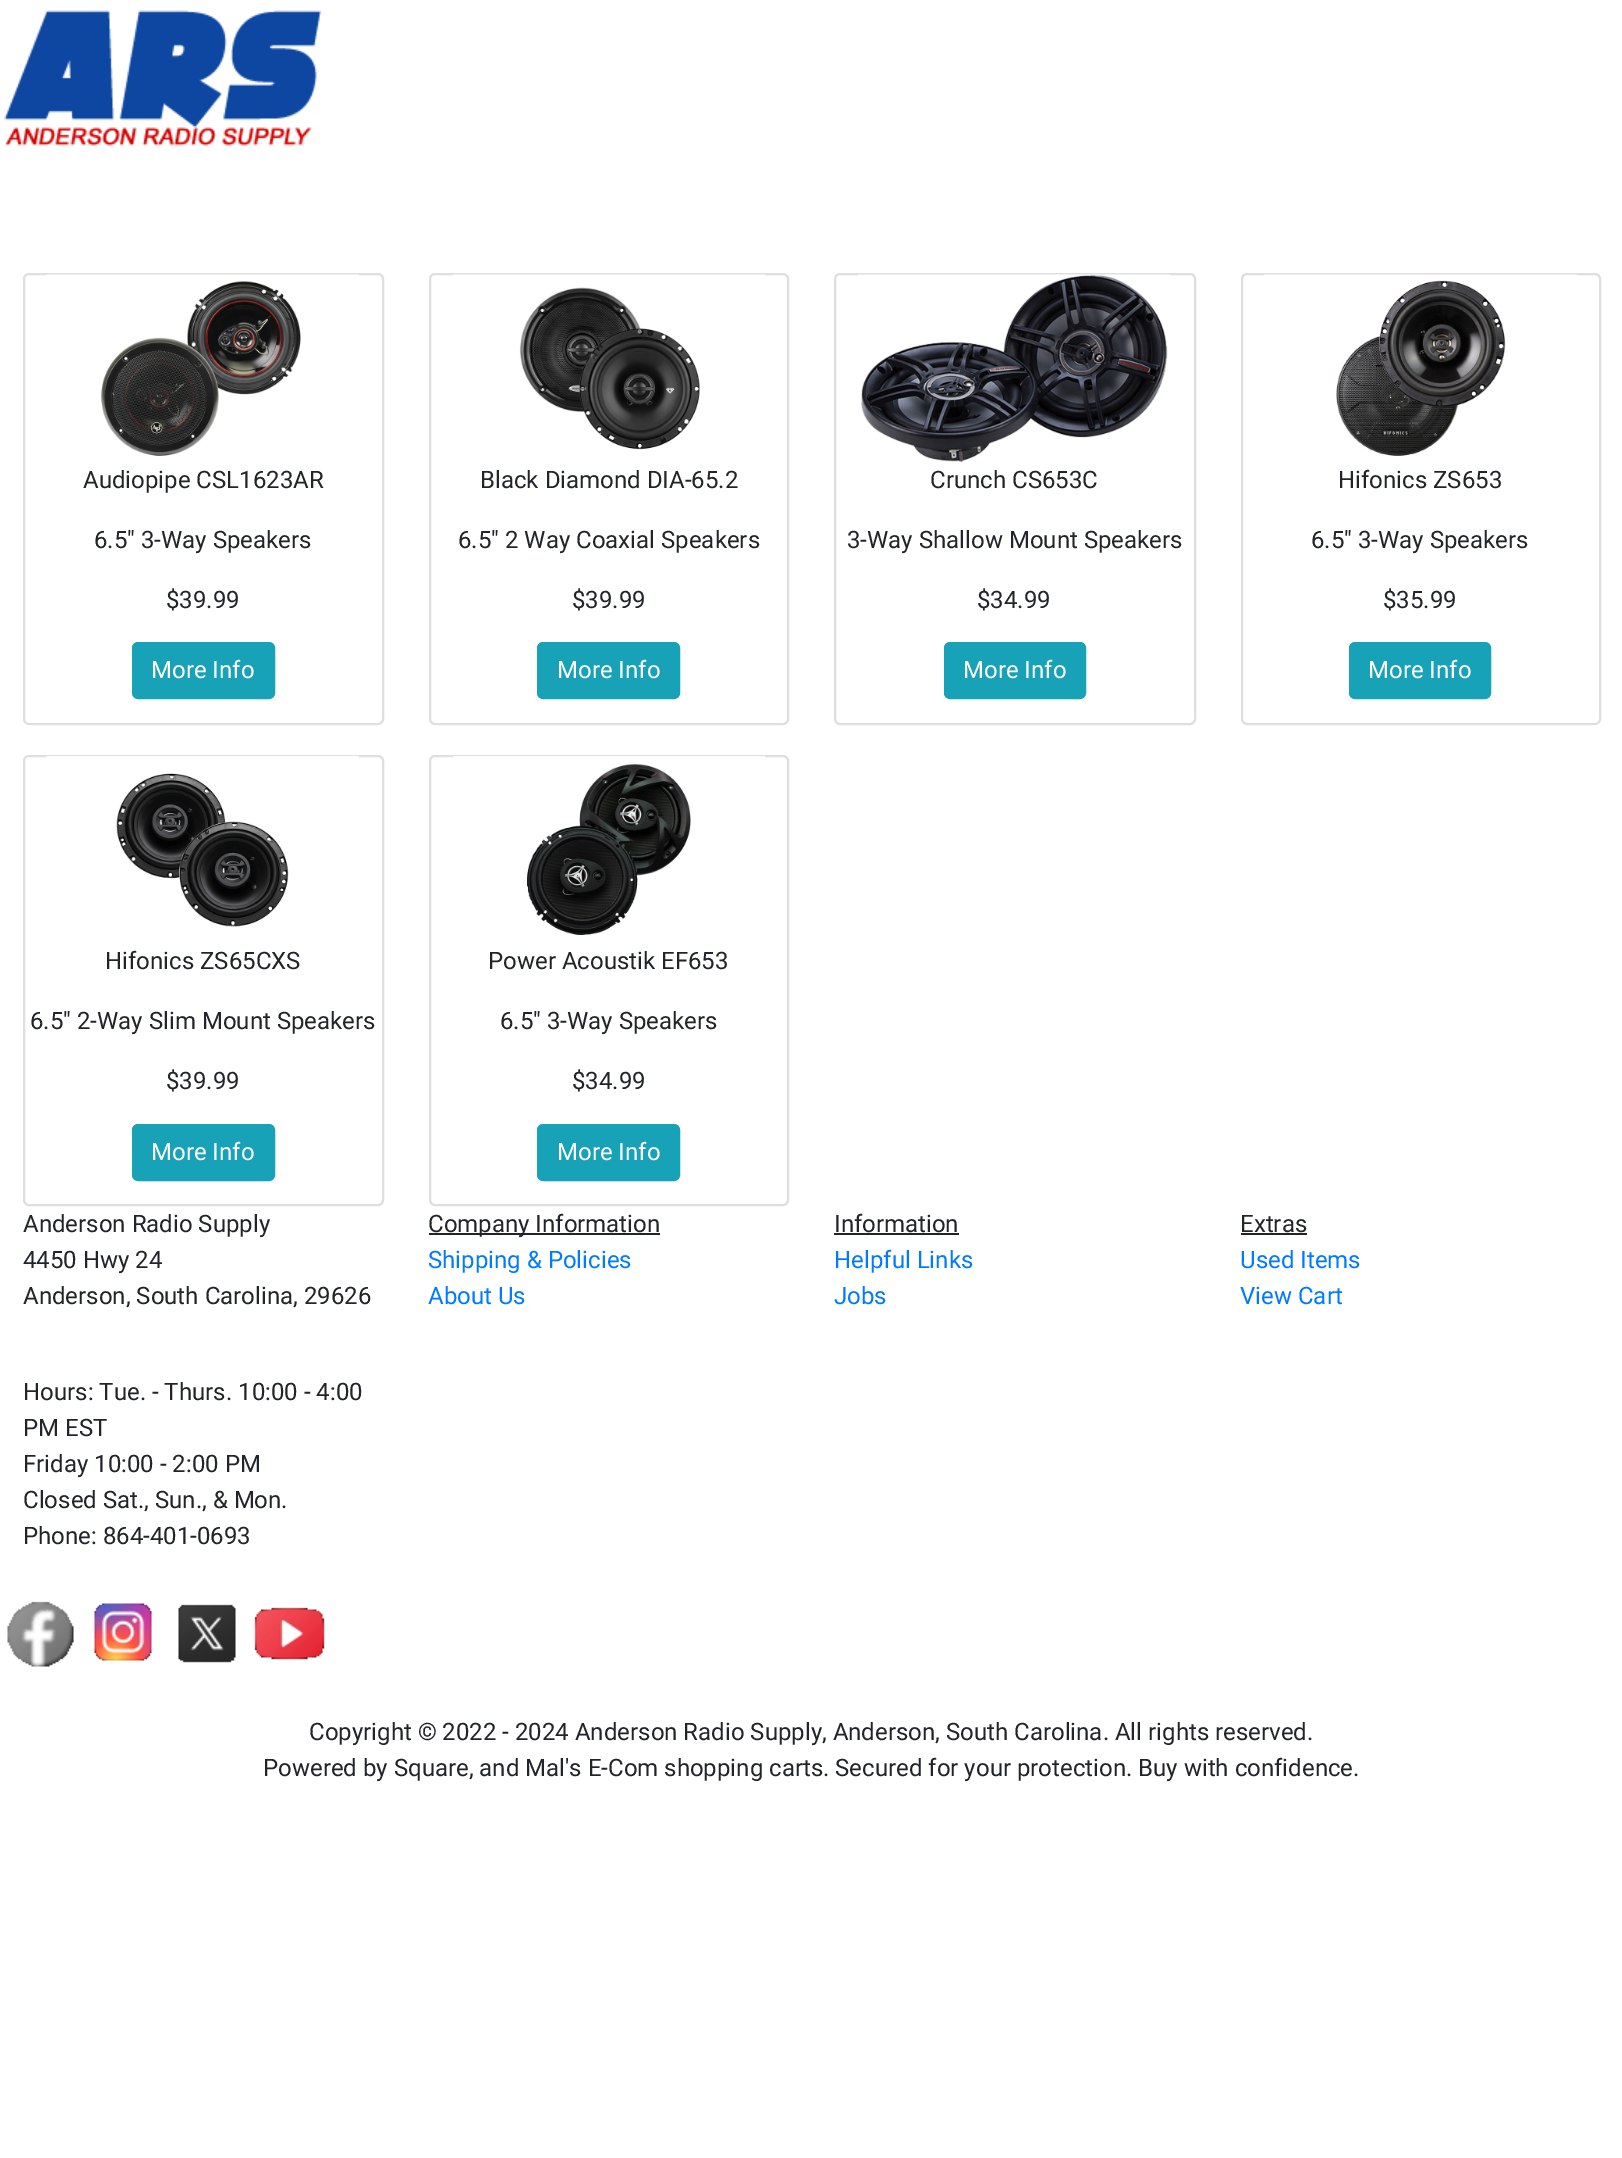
%!PS-Adobe-3.0
%%BoundingBox: 0 0 1622 2158
%%LanguageLevel: 3
%%Pages: 1
%%EndComments
%%BeginProlog
/setink { 3 { 255 div 3 1 roll } repeat setrgbcolor } def
/usefont { [ exch dup neg 0 0 3 -1 roll 0 0 ] selectfont } def
/drawtext { setink usefont moveto show } def
/fillbox { setink rectfill } def
/rrect { 5 dict begin { /r /h /w /y /x } { exch def } forall
  x r add y moveto x w add y 2 copy h add r arct x w add y h add x 1 index r arct
  x y h add x y r arct x y 2 copy exch w add exch r arct closepath end } def
/drawimage { 5 dict begin { /h /w /y /x /name } { exch def } forall
  gsave x y translate w h scale
  w h 8 [w 0 0 h 0 0] name (r) file false 3 colorimage grestore end } def
%%EndProlog
%%BeginSetup
<< /PageSize [1622 2158] >> setpagedevice
%%EndSetup
%%Page: 1 1
0 2158 translate 1 -1 scale
4 setmiterlimit
0 0 1622 2158 255 255 255 fillbox
(assets/img1.rgb) 4 10 318 136 drawimage
223 223 223 setink
2 setlinewidth
24 274 359 450 5 rrect stroke
(assets/img2.rgb) 46 274 313 182 drawimage
(Audiopipe CSL1623AR) 83 488 /Roboto-Regular 24 33 37 41 drawtext
(6.5″ 3-Way Speakers) 94 548 /Roboto-Regular 24 33 37 41 drawtext
($39.99) 166 608 /Roboto-Regular 24 33 37 41 drawtext
23 162 184 setink
133 643 141 55 5 rrect gsave fill grestore
stroke
(More Info) 151 678 /Roboto-Regular 24 255 255 255 drawtext
223 223 223 setink
430 274 358 450 5 rrect stroke
(assets/img3.rgb) 453 274 312 176 drawimage
(Black Diamond DIA-65.2) 480 488 /Roboto-Regular 24 33 37 41 drawtext
(6.5" 2 Way Coaxial Speakers) 458 548 /Roboto-Regular 24 33 37 41 drawtext
($39.99) 572 608 /Roboto-Regular 24 33 37 41 drawtext
23 162 184 setink
538 643 141 55 5 rrect gsave fill grestore
stroke
(More Info) 557 678 /Roboto-Regular 24 255 255 255 drawtext
223 223 223 setink
835 274 360 450 5 rrect stroke
(assets/img4.rgb) 858 274 312 188 drawimage
(Crunch CS653C) 930 488 /Roboto-Regular 24 33 37 41 drawtext
(3-Way Shallow Mount Speakers) 847 548 /Roboto-Regular 24 33 37 41 drawtext
($34.99) 977 608 /Roboto-Regular 24 33 37 41 drawtext
23 162 184 setink
945 643 140 55 5 rrect gsave fill grestore
stroke
(More Info) 963 678 /Roboto-Regular 24 255 255 255 drawtext
223 223 223 setink
1242 274 358 450 5 rrect stroke
(assets/img5.rgb) 1264 274 313 182 drawimage
(Hifonics ZS653) 1338 488 /Roboto-Regular 24 33 37 41 drawtext
(6.5″ 3-Way Speakers) 1311 548 /Roboto-Regular 24 33 37 41 drawtext
($35.99) 1383 608 /Roboto-Regular 24 33 37 41 drawtext
23 162 184 setink
1350 643 140 55 5 rrect gsave fill grestore
stroke
(More Info) 1368 678 /Roboto-Regular 24 255 255 255 drawtext
223 223 223 setink
24 756 359 449 5 rrect stroke
(assets/img6.rgb) 46 756 313 171 drawimage
(Hifonics ZS65CXS) 105 969 /Roboto-Regular 24 33 37 41 drawtext
(6.5″ 2-Way Slim Mount Speakers) 30 1029 /Roboto-Regular 24 33 37 41 drawtext
($39.99) 166 1089 /Roboto-Regular 24 33 37 41 drawtext
23 162 184 setink
133 1125 141 55 5 rrect gsave fill grestore
stroke
(More Info) 151 1160 /Roboto-Regular 24 255 255 255 drawtext
223 223 223 setink
430 756 358 449 5 rrect stroke
(assets/img7.rgb) 453 756 312 180 drawimage
(Power Acoustik EF653) 488 969 /Roboto-Regular 24 33 37 41 drawtext
(6.5″ 3-Way Speakers) 500 1029 /Roboto-Regular 24 33 37 41 drawtext
($34.99) 572 1089 /Roboto-Regular 24 33 37 41 drawtext
23 162 184 setink
538 1125 141 55 5 rrect gsave fill grestore
stroke
(More Info) 557 1160 /Roboto-Regular 24 255 255 255 drawtext
(Anderson Radio Supply) 23 1232 /Roboto-Regular 24 33 37 41 drawtext
(4450 Hwy 24) 23 1268 /Roboto-Regular 24 33 37 41 drawtext
(Anderson, South Carolina, 29626) 23 1304 /Roboto-Regular 24 33 37 41 drawtext
(Hours: Tue. - Thurs. 10:00 - 4:00) 23 1400 /Roboto-Regular 24 33 37 41 drawtext
(PM EST) 23 1436 /Roboto-Regular 24 33 37 41 drawtext
(Friday 10:00 - 2:00 PM) 23 1472 /Roboto-Regular 24 33 37 41 drawtext
(Closed Sat., Sun., & Mon.) 23 1508 /Roboto-Regular 24 33 37 41 drawtext
(Phone: 864-401-0693) 23 1544 /Roboto-Regular 24 33 37 41 drawtext
429 1233 231 2 33 37 41 fillbox
(Company Information) 428 1232 /Roboto-Regular 24 33 37 41 drawtext
(Shipping & Policies) 428 1268 /Roboto-Regular 24 0 123 255 drawtext
(About Us) 428 1304 /Roboto-Regular 24 0 123 255 drawtext
(Information) 834 1232 /Roboto-Regular 24 33 37 41 drawtext
834 1233 125 2 33 37 41 fillbox
(Helpful Links) 834 1268 /Roboto-Regular 24 0 123 255 drawtext
(Jobs) 834 1304 /Roboto-Regular 24 0 123 255 drawtext
(Extras) 1240 1232 /Roboto-Regular 24 33 37 41 drawtext
1241 1233 66 2 33 37 41 fillbox
(Used Items) 1240 1268 /Roboto-Regular 24 0 123 255 drawtext
(View Cart) 1240 1304 /Roboto-Regular 24 0 123 255 drawtext
(assets/img8.rgb) 7 1601 67 66 drawimage
(assets/img9.rgb) 94 1603 58 58 drawimage
(assets/img10.rgb) 178 1604 58 59 drawimage
(assets/img11.rgb) 254 1607 71 53 drawimage
(Copyright © 2022 - 2024 Anderson Radio Supply, Anderson, South Carolina. All rights reserved.) 309 1740 /Roboto-Regular 24 33 37 41 drawtext
(Powered by Square, and Mal's E-Com shopping carts. Secured for your protection. Buy with confidence.) 263 1776 /Roboto-Regular 24 33 37 41 drawtext
showpage
%%EOF
